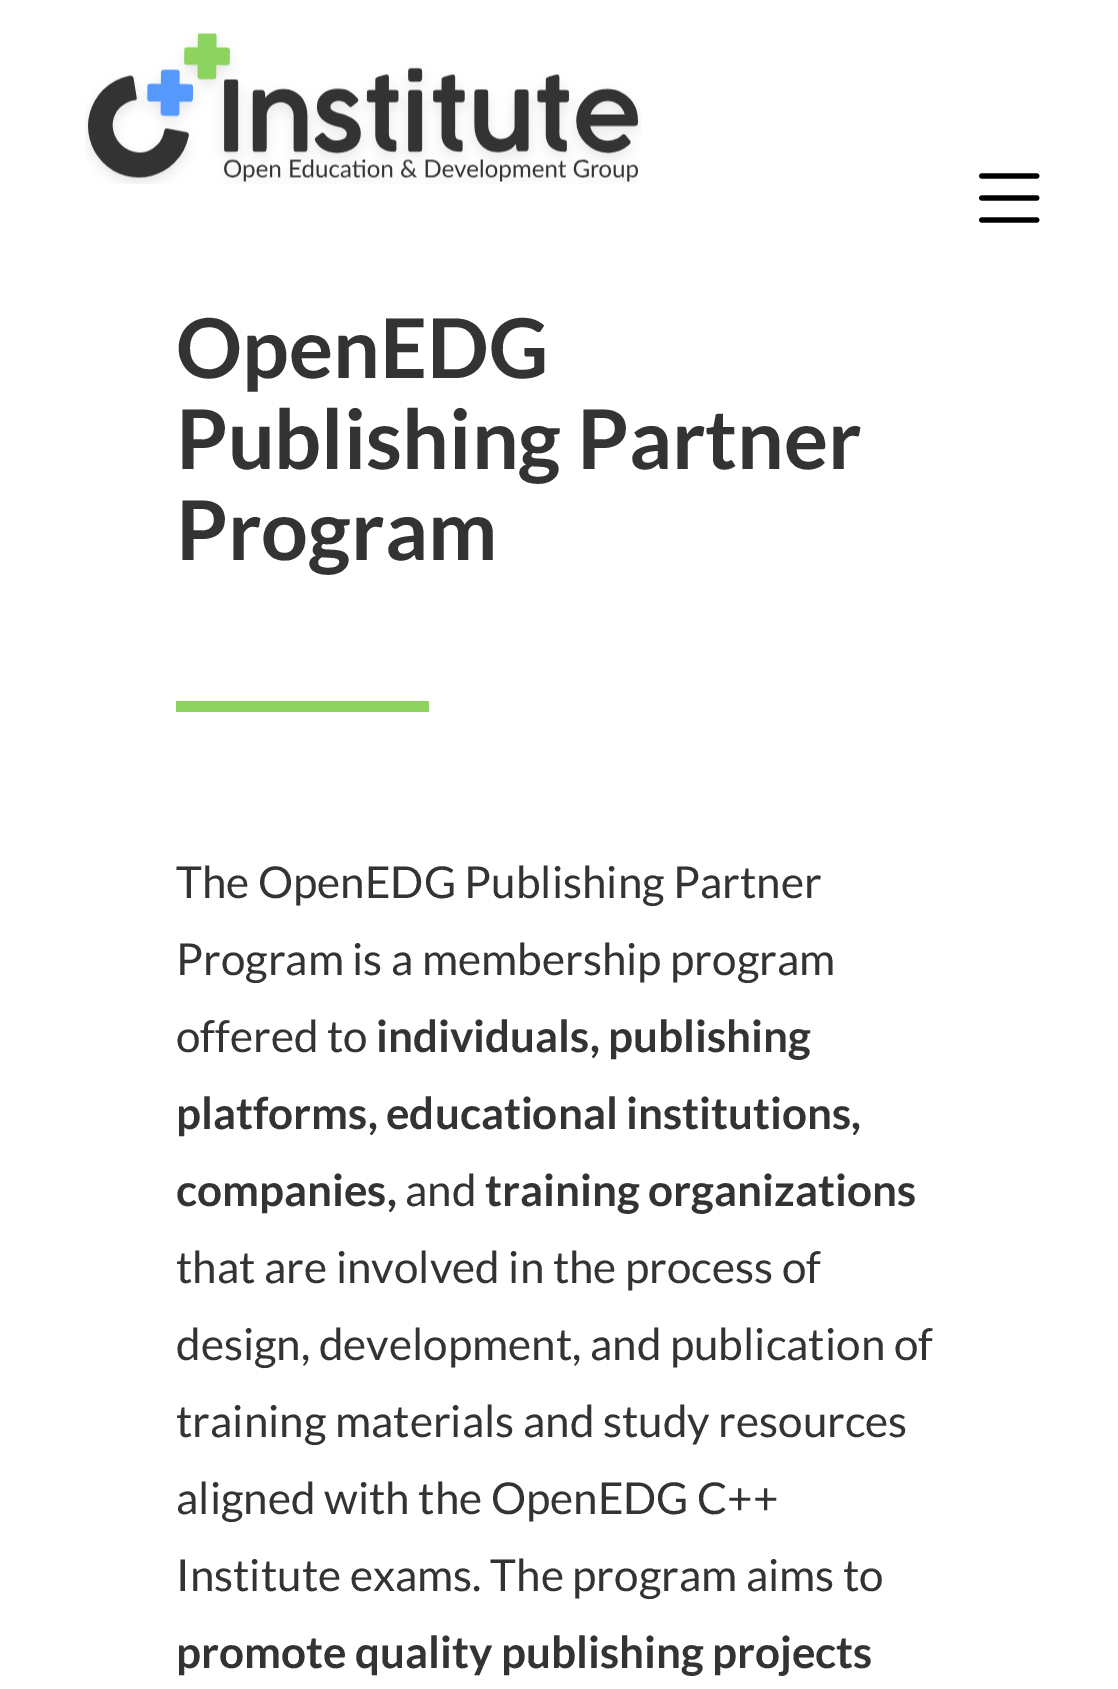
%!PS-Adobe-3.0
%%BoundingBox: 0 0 1118 1689
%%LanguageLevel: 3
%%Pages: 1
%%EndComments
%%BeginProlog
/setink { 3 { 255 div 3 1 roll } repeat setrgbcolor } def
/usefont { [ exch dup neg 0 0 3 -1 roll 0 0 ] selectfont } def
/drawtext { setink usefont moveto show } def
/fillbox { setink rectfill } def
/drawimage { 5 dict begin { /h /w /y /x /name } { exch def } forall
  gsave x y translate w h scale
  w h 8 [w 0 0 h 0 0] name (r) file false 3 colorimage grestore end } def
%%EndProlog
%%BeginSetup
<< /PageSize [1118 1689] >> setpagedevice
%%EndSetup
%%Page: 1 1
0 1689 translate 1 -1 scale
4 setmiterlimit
0 0 1118 1689 255 255 255 fillbox
(assets/img1.rgb) 85 33 556 151 drawimage
(assets/img2.rgb) 979 173 61 50 drawimage
(OpenEDG) 176 378 /Lato-Bold 82.5 51 51 51 drawtext
(Publishing Partner) 176 469 /Lato-Bold 82.5 51 51 51 drawtext
(Program) 176 560 /Lato-Bold 82.5 51 51 51 drawtext
176 701 253 11 141 211 95 fillbox
(The OpenEDG Publishing Partner) 176 898 /Lato-Regular 44 51 51 51 drawtext
(Program is a membership program) 176 975 /Lato-Regular 44 51 51 51 drawtext
(offered to) 176 1052 /Lato-Regular 44 51 51 51 drawtext
(individuals, publishing) 376 1052 /Lato-Bold 44 51 51 51 drawtext
(platforms, educational institutions,) 176 1129 /Lato-Bold 44 51 51 51 drawtext
(companies,) 176 1206 /Lato-Bold 44 51 51 51 drawtext
(and) 405 1206 /Lato-Regular 44 51 51 51 drawtext
(training organizations) 485 1206 /Lato-Bold 44 51 51 51 drawtext
(that are involved in the process of) 176 1283 /Lato-Regular 44 51 51 51 drawtext
(design, development, and publication of) 176 1360 /Lato-Regular 44 51 51 51 drawtext
(training materials and study resources) 176 1437 /Lato-Regular 44 51 51 51 drawtext
(aligned with the OpenEDG C++) 176 1514 /Lato-Regular 44 51 51 51 drawtext
(Institute exams. The program aims to) 176 1591 /Lato-Regular 44 51 51 51 drawtext
(promote quality publishing projects) 176 1668 /Lato-Bold 44 51 51 51 drawtext
showpage
%%EOF
